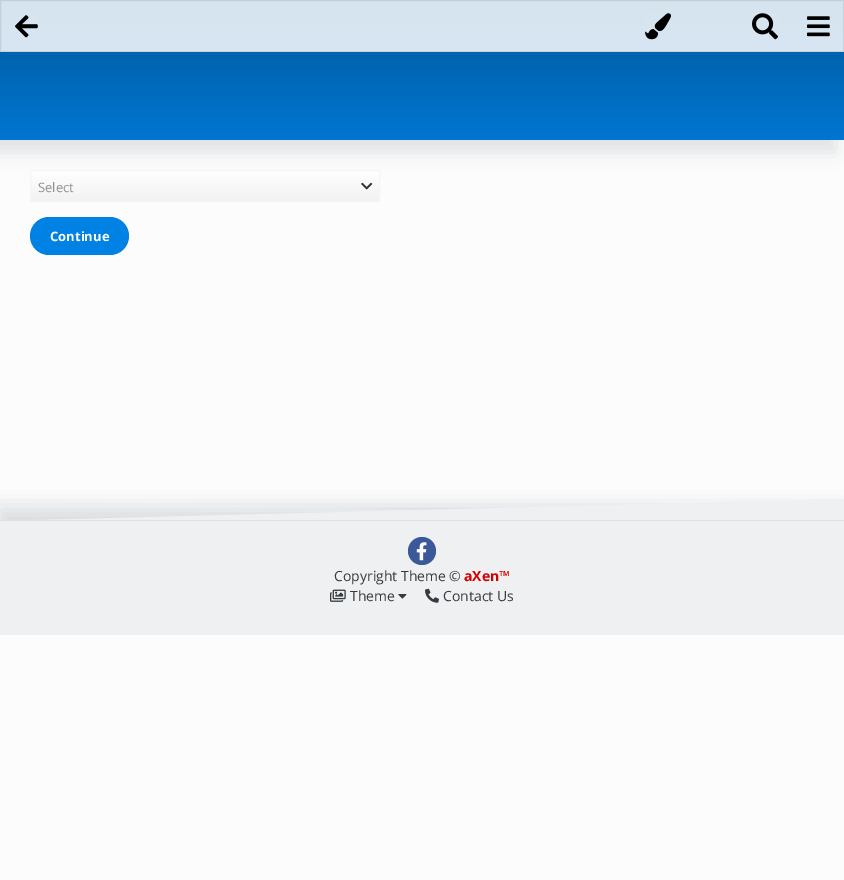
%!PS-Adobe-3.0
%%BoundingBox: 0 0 844 880
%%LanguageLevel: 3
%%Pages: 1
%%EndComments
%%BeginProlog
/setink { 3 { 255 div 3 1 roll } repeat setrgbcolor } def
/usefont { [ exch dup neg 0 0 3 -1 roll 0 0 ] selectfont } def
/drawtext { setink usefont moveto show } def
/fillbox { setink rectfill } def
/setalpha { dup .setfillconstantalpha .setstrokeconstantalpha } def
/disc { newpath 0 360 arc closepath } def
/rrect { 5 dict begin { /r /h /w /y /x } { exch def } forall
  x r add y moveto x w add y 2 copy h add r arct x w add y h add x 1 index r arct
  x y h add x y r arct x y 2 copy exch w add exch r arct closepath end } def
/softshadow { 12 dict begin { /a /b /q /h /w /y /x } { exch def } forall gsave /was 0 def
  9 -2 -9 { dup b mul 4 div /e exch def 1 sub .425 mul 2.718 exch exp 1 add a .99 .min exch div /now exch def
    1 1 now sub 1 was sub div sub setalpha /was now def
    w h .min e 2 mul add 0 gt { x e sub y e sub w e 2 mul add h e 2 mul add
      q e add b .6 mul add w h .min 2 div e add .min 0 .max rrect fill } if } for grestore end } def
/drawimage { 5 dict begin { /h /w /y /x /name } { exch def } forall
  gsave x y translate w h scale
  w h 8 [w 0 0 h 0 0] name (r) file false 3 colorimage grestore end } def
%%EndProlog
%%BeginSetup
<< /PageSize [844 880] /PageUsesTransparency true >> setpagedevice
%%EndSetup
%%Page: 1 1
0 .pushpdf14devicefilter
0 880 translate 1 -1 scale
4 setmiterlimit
0 0 844 880 252 252 252 fillbox
25 42 70 setink
-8 12 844 140 0 9 0.13 softshadow
gsave 0 52 moveto 844 52 lineto 844 140 lineto 0 140 lineto closepath clip newpath
<< /ShadingType 2 /ColorSpace /DeviceRGB /Coords [422 0 422 140] /Extend [true true] /Function << /FunctionType 2 /Domain [0 1] /C0 [0 0.341 0.6] /C1 [0 0.463 0.82] /N 1 >> >> shfill grestore
gsave 0 0 moveto 844 0 lineto 844 52 lineto 0 52 lineto closepath clip newpath
<< /ShadingType 2 /ColorSpace /DeviceRGB /Coords [422 0 422 140] /Extend [true true] /Function << /FunctionType 2 /Domain [0 1] /C0 [0.839 0.894 0.937] /C1 [0.839 0.914 0.973] /N 1 >> >> shfill grestore
0.1 setalpha
29 29 31 setink
0.5 0.5 843 51 rectstroke
1 setalpha
(assets/img1.rgb) 15 15 23 23 drawimage
(assets/img2.rgb) 645 13 26 27 drawimage
(assets/img3.rgb) 752 13 26 27 drawimage
(assets/img4.rgb) 807 16 23 21 drawimage
gsave
30 170 350 32 2 rrect clip newpath
gsave 30 171 moveto 380 171 lineto 380 201 lineto 30 201 lineto closepath clip newpath
<< /ShadingType 2 /ColorSpace /DeviceRGB /Coords [205 171 205 201] /Extend [true true] /Function << /FunctionType 2 /Domain [0 1] /C0 [1 1 1] /C1 [0.949 0.949 0.949] /N 1 >> >> shfill grestore
grestore
245 245 245 setink
30.5 170.5 349 31 1.5 rrect stroke
(Select) 38 192 /OpenSans-Regular 13 144 144 144 drawtext
(assets/img5.rgb) 361 182 12 8 drawimage
0 129 228 setink
30 217 99 38 19 rrect fill
(Continue) 50 241 /OpenSans-Bold 13 255 255 255 drawtext
25 42 70 setink
0 510 844 40 0 9 0.13 softshadow
245 246 247 setink
0 499 moveto 844 521 lineto 844 561 lineto 0 539 lineto closepath fill
25 42 70 setink
0 510 844 40 0 9 0.13 softshadow
239 240 241 setink
0 521 moveto 844 499 lineto 844 539 lineto 0 561 lineto closepath fill
0 539 844 96 239 240 241 fillbox
0 520 844 1 224 224 224 fillbox
59 89 152 setink
422 551 14 disc fill
(assets/img6.rgb) 416 542 11 19 drawimage
(Copyright Theme ©) 334 581 /OpenSans-Regular 14 53 60 65 drawtext
(aXen™) 464 581 /OpenSans-Bold 14 210 0 0 drawtext
(assets/img7.rgb) 330 589 16 13 drawimage
(Theme) 350 601 /OpenSans-Regular 14 53 60 65 drawtext
(assets/img8.rgb) 398 594 9 5 drawimage
(assets/img9.rgb) 425 588 14 15 drawimage
(Contact Us) 443 601 /OpenSans-Regular 14 53 60 65 drawtext
.poppdf14devicefilter showpage
%%EOF
